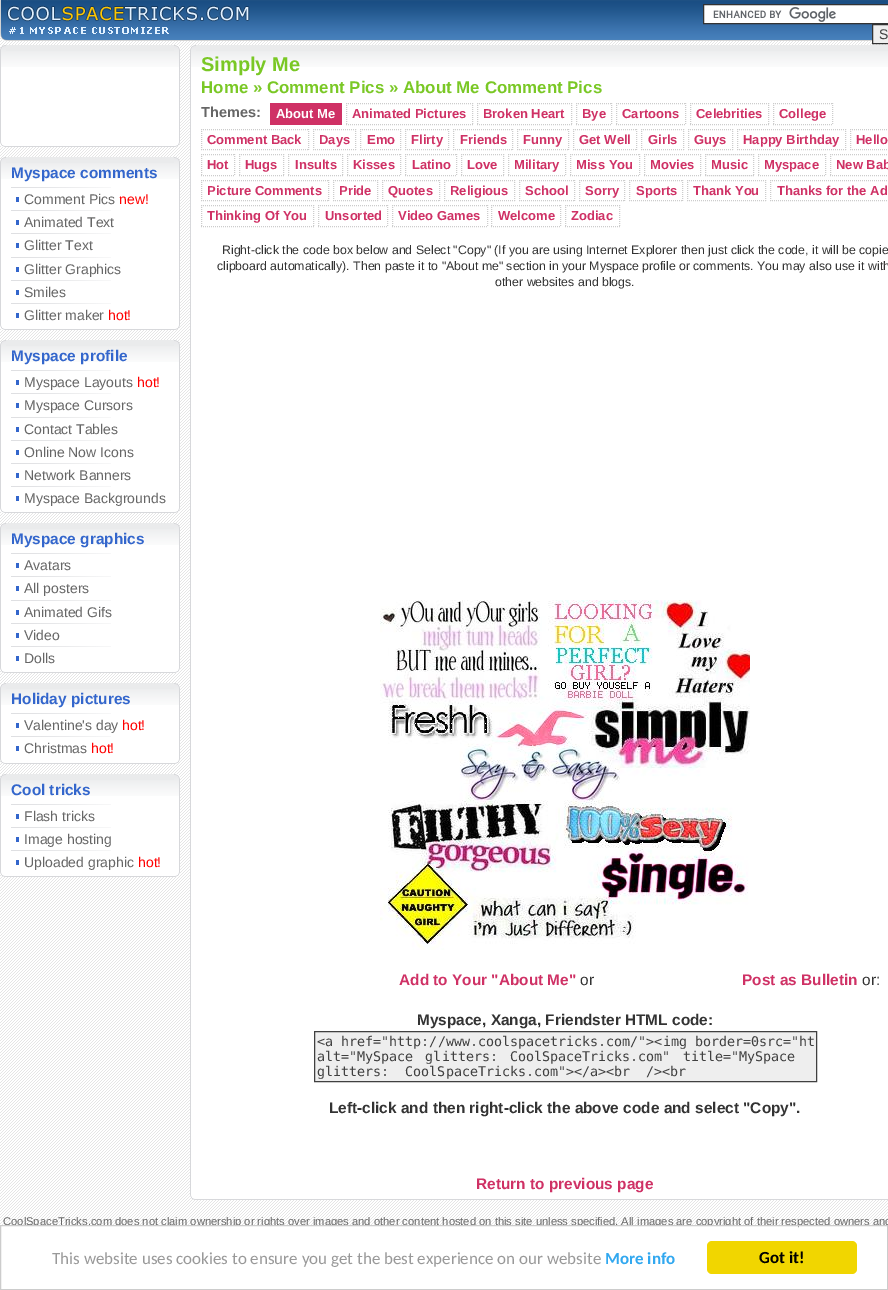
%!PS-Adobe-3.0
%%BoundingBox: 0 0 888 1290
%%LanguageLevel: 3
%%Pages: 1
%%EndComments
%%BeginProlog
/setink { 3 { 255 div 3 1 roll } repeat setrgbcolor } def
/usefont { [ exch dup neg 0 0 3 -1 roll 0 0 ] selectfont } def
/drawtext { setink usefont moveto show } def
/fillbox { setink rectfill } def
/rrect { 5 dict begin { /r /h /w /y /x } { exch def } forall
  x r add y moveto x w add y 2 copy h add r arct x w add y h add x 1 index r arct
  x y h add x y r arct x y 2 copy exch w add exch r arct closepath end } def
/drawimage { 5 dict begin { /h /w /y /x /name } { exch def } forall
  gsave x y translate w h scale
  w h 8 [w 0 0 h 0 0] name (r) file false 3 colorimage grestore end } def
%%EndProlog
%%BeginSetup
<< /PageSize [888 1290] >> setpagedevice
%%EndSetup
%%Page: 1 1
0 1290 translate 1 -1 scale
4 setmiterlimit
0 0 888 1290 255 255 255 fillbox
(assets/img1.rgb) 0 38 888 1187 drawimage
(assets/img2.rgb) 0 0 888 41 drawimage
704 5 184 18 255 255 255 fillbox
(assets/img3.rgb) 713 7 123 15 drawimage
51 51 51 setink
703.5 4.5 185 19 rectstroke
239 239 239 setink
872.5 24.5 moveto 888.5 24.5 lineto 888.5 43.5 lineto 872.5 43.5 lineto closepath gsave fill grestore
51 51 51 setink
stroke
(S) 879 39 /LiberationSans-Regular 14 64 64 64 drawtext
(assets/img4.rgb) 0 45 6 6 drawimage
6 45 168 6 234 235 236 fillbox
(assets/img5.rgb) 174 45 6 6 drawimage
1 67 178 74 255 255 255 fillbox
0 51 1 90 215 216 219 fillbox
(assets/img6.rgb) 1 51 5 16 drawimage
(assets/img7.rgb) 6 51 168 16 drawimage
179 51 1 90 215 216 219 fillbox
(assets/img6.rgb) 174 51 5 16 drawimage
(assets/img8.rgb) 0 141 6 6 drawimage
6 141 168 5 255 255 255 fillbox
6 146 168 1 215 216 219 fillbox
(assets/img9.rgb) 174 141 6 6 drawimage
(assets/img10.rgb) 0 157 6 6 drawimage
6 157 168 6 234 235 236 fillbox
(assets/img11.rgb) 174 157 6 6 drawimage
1 179 178 145 255 255 255 fillbox
0 163 1 161 215 216 219 fillbox
(assets/img6.rgb) 1 163 5 16 drawimage
(assets/img7.rgb) 6 163 168 16 drawimage
(Myspace comments) 11 178 /LiberationSans-Bold 15.4 51 102 204 drawtext
(assets/img12.rgb) 11 187 100 1 drawimage
16 197 3 5 51 102 204 fillbox
(Comment Pics) 24 204 /LiberationSans-Regular 14 102 102 102 drawtext
(new!) 119 204 /LiberationSans-Regular 14 255 0 0 drawtext
(assets/img12.rgb) 11 210 100 1 drawimage
16 220 3 5 51 102 204 fillbox
(Animated Text) 24 227 /LiberationSans-Regular 14 102 102 102 drawtext
(assets/img12.rgb) 11 233 100 1 drawimage
16 243 3 5 51 102 204 fillbox
(Glitter Text) 24 250 /LiberationSans-Regular 14 102 102 102 drawtext
(assets/img12.rgb) 11 257 100 1 drawimage
16 267 3 5 51 102 204 fillbox
(Glitter Graphics) 24 274 /LiberationSans-Regular 14 102 102 102 drawtext
(assets/img12.rgb) 11 280 100 1 drawimage
16 290 3 5 51 102 204 fillbox
(Smiles) 24 297 /LiberationSans-Regular 14 102 102 102 drawtext
(assets/img12.rgb) 11 303 100 1 drawimage
16 313 3 5 51 102 204 fillbox
(Glitter maker) 24 320 /LiberationSans-Regular 14 102 102 102 drawtext
(hot!) 108 320 /LiberationSans-Regular 14 255 0 0 drawtext
179 163 1 161 215 216 219 fillbox
(assets/img6.rgb) 174 163 5 16 drawimage
(assets/img8.rgb) 0 324 6 6 drawimage
6 324 168 5 255 255 255 fillbox
6 329 168 1 215 216 219 fillbox
(assets/img9.rgb) 174 324 6 6 drawimage
(assets/img10.rgb) 0 340 6 6 drawimage
6 340 168 6 234 235 236 fillbox
(assets/img11.rgb) 174 340 6 6 drawimage
1 362 178 145 255 255 255 fillbox
0 346 1 161 215 216 219 fillbox
(assets/img6.rgb) 1 346 5 16 drawimage
(assets/img7.rgb) 6 346 168 16 drawimage
(Myspace profile) 11 361 /LiberationSans-Bold 15.4 51 102 204 drawtext
(assets/img12.rgb) 11 370 100 1 drawimage
16 380 3 5 51 102 204 fillbox
(Myspace Layouts) 24 387 /LiberationSans-Regular 14 102 102 102 drawtext
(hot!) 137 387 /LiberationSans-Regular 14 255 0 0 drawtext
(assets/img12.rgb) 11 393 100 1 drawimage
16 403 3 5 51 102 204 fillbox
(Myspace Cursors) 24 410 /LiberationSans-Regular 14 102 102 102 drawtext
(assets/img12.rgb) 11 417 100 1 drawimage
16 427 3 5 51 102 204 fillbox
(Contact Tables) 24 434 /LiberationSans-Regular 14 102 102 102 drawtext
(assets/img12.rgb) 11 440 100 1 drawimage
16 450 3 5 51 102 204 fillbox
(Online Now Icons) 24 457 /LiberationSans-Regular 14 102 102 102 drawtext
(assets/img12.rgb) 11 463 100 1 drawimage
16 473 3 5 51 102 204 fillbox
(Network Banners) 24 480 /LiberationSans-Regular 14 102 102 102 drawtext
(assets/img12.rgb) 11 486 100 1 drawimage
16 496 3 5 51 102 204 fillbox
(Myspace Backgrounds) 24 503 /LiberationSans-Regular 14 102 102 102 drawtext
179 346 1 161 215 216 219 fillbox
(assets/img6.rgb) 174 346 5 16 drawimage
(assets/img8.rgb) 0 507 6 6 drawimage
6 507 168 5 255 255 255 fillbox
6 512 168 1 215 216 219 fillbox
(assets/img9.rgb) 174 507 6 6 drawimage
(assets/img10.rgb) 0 523 6 6 drawimage
6 523 168 6 234 235 236 fillbox
(assets/img11.rgb) 174 523 6 6 drawimage
1 545 178 122 255 255 255 fillbox
0 529 1 138 215 216 219 fillbox
(assets/img6.rgb) 1 529 5 16 drawimage
(assets/img7.rgb) 6 529 168 16 drawimage
(Myspace graphics) 11 544 /LiberationSans-Bold 15.4 51 102 204 drawtext
(assets/img12.rgb) 11 553 100 1 drawimage
16 563 3 5 51 102 204 fillbox
(Avatars) 24 570 /LiberationSans-Regular 14 102 102 102 drawtext
(assets/img12.rgb) 11 576 100 1 drawimage
16 586 3 5 51 102 204 fillbox
(All posters) 24 593 /LiberationSans-Regular 14 102 102 102 drawtext
(assets/img12.rgb) 11 600 100 1 drawimage
16 610 3 5 51 102 204 fillbox
(Animated Gifs) 24 617 /LiberationSans-Regular 14 102 102 102 drawtext
(assets/img12.rgb) 11 623 100 1 drawimage
16 633 3 5 51 102 204 fillbox
(Video) 24 640 /LiberationSans-Regular 14 102 102 102 drawtext
(assets/img12.rgb) 11 646 100 1 drawimage
16 656 3 5 51 102 204 fillbox
(Dolls) 24 663 /LiberationSans-Regular 14 102 102 102 drawtext
179 529 1 138 215 216 219 fillbox
(assets/img6.rgb) 174 529 5 16 drawimage
(assets/img13.rgb) 0 667 6 6 drawimage
6 667 168 5 255 255 255 fillbox
6 672 168 1 215 216 219 fillbox
(assets/img14.rgb) 174 667 6 6 drawimage
(assets/img15.rgb) 0 683 6 6 drawimage
6 683 168 6 234 235 236 fillbox
(assets/img16.rgb) 174 683 6 6 drawimage
1 705 178 53 255 255 255 fillbox
0 689 1 69 215 216 219 fillbox
(assets/img6.rgb) 1 689 5 16 drawimage
(assets/img7.rgb) 6 689 168 16 drawimage
(Holiday pictures) 11 704 /LiberationSans-Bold 15.4 51 102 204 drawtext
(assets/img12.rgb) 11 713 100 1 drawimage
16 723 3 5 51 102 204 fillbox
(Valentine's day) 24 730 /LiberationSans-Regular 14 102 102 102 drawtext
(hot!) 122 730 /LiberationSans-Regular 14 255 0 0 drawtext
(assets/img12.rgb) 11 736 100 1 drawimage
16 746 3 5 51 102 204 fillbox
(Christmas) 24 753 /LiberationSans-Regular 14 102 102 102 drawtext
(hot!) 91 753 /LiberationSans-Regular 14 255 0 0 drawtext
179 689 1 69 215 216 219 fillbox
(assets/img6.rgb) 174 689 5 16 drawimage
(assets/img17.rgb) 0 758 6 6 drawimage
6 758 168 5 255 255 255 fillbox
6 763 168 1 215 216 219 fillbox
(assets/img18.rgb) 174 758 6 6 drawimage
(assets/img4.rgb) 0 774 6 6 drawimage
6 774 168 6 234 235 236 fillbox
(assets/img5.rgb) 174 774 6 6 drawimage
1 796 178 75 255 255 255 fillbox
0 780 1 91 215 216 219 fillbox
(assets/img6.rgb) 1 780 5 16 drawimage
(assets/img7.rgb) 6 780 168 16 drawimage
(Cool tricks) 11 795 /LiberationSans-Bold 15.4 51 102 204 drawtext
(assets/img12.rgb) 11 804 100 1 drawimage
16 814 3 5 51 102 204 fillbox
(Flash tricks) 24 821 /LiberationSans-Regular 14 102 102 102 drawtext
(assets/img12.rgb) 11 827 100 1 drawimage
16 837 3 5 51 102 204 fillbox
(Image hosting) 24 844 /LiberationSans-Regular 14 102 102 102 drawtext
(assets/img12.rgb) 11 850 100 1 drawimage
16 860 3 5 51 102 204 fillbox
(Uploaded graphic) 24 867 /LiberationSans-Regular 14 102 102 102 drawtext
(hot!) 138 867 /LiberationSans-Regular 14 255 0 0 drawtext
179 780 1 91 215 216 219 fillbox
(assets/img6.rgb) 174 780 5 16 drawimage
(assets/img13.rgb) 0 871 6 6 drawimage
6 871 168 5 255 255 255 fillbox
6 876 168 1 215 216 219 fillbox
(assets/img14.rgb) 174 871 6 6 drawimage
(assets/img10.rgb) 190 45 6 6 drawimage
196 45 692 6 234 235 236 fillbox
191 67 697 1127 255 255 255 fillbox
190 51 1 1143 215 216 219 fillbox
(assets/img6.rgb) 191 51 5 16 drawimage
(assets/img19.rgb) 196 51 692 16 drawimage
(Simply Me) 201 71 /LiberationSans-Bold 20 122 200 37 drawtext
(Home » Comment Pics » About Me Comment Pics) 201 93 /LiberationSans-Bold 16.9 122 200 37 drawtext
(Themes:) 201 117 /LiberationSans-Bold 14.5 102 102 102 drawtext
270 103 72 22 207 49 101 fillbox
(About Me) 276 118 /LiberationSans-Bold 13 255 255 255 drawtext
204 204 204 setink
[1 1] 0 setdash
346 103.5 moveto 473 103.5 lineto stroke
472.5 103 moveto 472.5 125 lineto stroke
346 124.5 moveto 473 124.5 lineto stroke
346.5 103 moveto 346.5 125 lineto stroke
(Animated Pictures) 352 118 /LiberationSans-Bold 13 207 49 101 drawtext
204 204 204 setink
477 103.5 moveto 572 103.5 lineto stroke
571.5 103 moveto 571.5 125 lineto stroke
477 124.5 moveto 572 124.5 lineto stroke
477.5 103 moveto 477.5 125 lineto stroke
(Broken Heart) 483 118 /LiberationSans-Bold 13 207 49 101 drawtext
204 204 204 setink
576 103.5 moveto 612 103.5 lineto 611.5 103 moveto 611.5 125 lineto 576 124.5 moveto 612 124.5 lineto 576.5 103 moveto 576.5 125 lineto stroke
(Bye) 582 118 /LiberationSans-Bold 13 207 49 101 drawtext
204 204 204 setink
616 103.5 moveto 686 103.5 lineto stroke
685.5 103 moveto 685.5 125 lineto stroke
616 124.5 moveto 686 124.5 lineto stroke
616.5 103 moveto 616.5 125 lineto stroke
(Cartoons) 622 118 /LiberationSans-Bold 13 207 49 101 drawtext
204 204 204 setink
690 103.5 moveto 769 103.5 lineto stroke
768.5 103 moveto 768.5 125 lineto stroke
690 124.5 moveto 769 124.5 lineto stroke
690.5 103 moveto 690.5 125 lineto stroke
(Celebrities) 696 118 /LiberationSans-Bold 13 207 49 101 drawtext
204 204 204 setink
773 103.5 moveto 833 103.5 lineto 832.5 103 moveto 832.5 125 lineto 773 124.5 moveto 833 124.5 lineto 773.5 103 moveto 773.5 125 lineto stroke
(College) 779 118 /LiberationSans-Bold 13 207 49 101 drawtext
204 204 204 setink
201 129.5 moveto 309 129.5 lineto stroke
308.5 129 moveto 308.5 150 lineto stroke
201 149.5 moveto 309 149.5 lineto stroke
201.5 129 moveto 201.5 150 lineto stroke
(Comment Back) 207 144 /LiberationSans-Bold 13 207 49 101 drawtext
204 204 204 setink
313 129.5 moveto 356 129.5 lineto 355.5 129 moveto 355.5 150 lineto 313 149.5 moveto 356 149.5 lineto 313.5 129 moveto 313.5 150 lineto stroke
(Days) 319 144 /LiberationSans-Bold 13 207 49 101 drawtext
204 204 204 setink
360 129.5 moveto 401 129.5 lineto 400.5 129 moveto 400.5 150 lineto 360 149.5 moveto 401 149.5 lineto 360.5 129 moveto 360.5 150 lineto stroke
(Emo) 367 144 /LiberationSans-Bold 13 207 49 101 drawtext
204 204 204 setink
405 129.5 moveto 449 129.5 lineto 448.5 129 moveto 448.5 150 lineto 405 149.5 moveto 449 149.5 lineto 405.5 129 moveto 405.5 150 lineto stroke
(Flirty) 411 144 /LiberationSans-Bold 13 207 49 101 drawtext
204 204 204 setink
453 129.5 moveto 513 129.5 lineto 512.5 129 moveto 512.5 150 lineto 453 149.5 moveto 513 149.5 lineto 453.5 129 moveto 453.5 150 lineto stroke
(Friends) 460 144 /LiberationSans-Bold 13 207 49 101 drawtext
204 204 204 setink
517 129.5 moveto 569 129.5 lineto 568.5 129 moveto 568.5 150 lineto 517 149.5 moveto 569 149.5 lineto 517.5 129 moveto 517.5 150 lineto stroke
(Funny) 523 144 /LiberationSans-Bold 13 207 49 101 drawtext
204 204 204 setink
573 129.5 moveto 637 129.5 lineto stroke
636.5 129 moveto 636.5 150 lineto stroke
573 149.5 moveto 637 149.5 lineto 573.5 129 moveto 573.5 150 lineto stroke
(Get Well) 579 144 /LiberationSans-Bold 13 207 49 101 drawtext
204 204 204 setink
641 129.5 moveto 684 129.5 lineto 683.5 129 moveto 683.5 150 lineto 641 149.5 moveto 684 149.5 lineto 641.5 129 moveto 641.5 150 lineto stroke
(Girls) 648 144 /LiberationSans-Bold 13 207 49 101 drawtext
204 204 204 setink
688 129.5 moveto 733 129.5 lineto 732.5 129 moveto 732.5 150 lineto 688 149.5 moveto 733 149.5 lineto 688.5 129 moveto 688.5 150 lineto stroke
(Guys) 694 144 /LiberationSans-Bold 13 207 49 101 drawtext
204 204 204 setink
737 129.5 moveto 846 129.5 lineto stroke
845.5 129 moveto 845.5 150 lineto stroke
737 149.5 moveto 846 149.5 lineto stroke
737.5 129 moveto 737.5 150 lineto stroke
(Happy Birthday) 743 144 /LiberationSans-Bold 13 207 49 101 drawtext
204 204 204 setink
850 129.5 moveto 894 129.5 lineto 850 149.5 moveto 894 149.5 lineto 850.5 129 moveto 850.5 150 lineto stroke
(Hello) 856 144 /LiberationSans-Bold 13 207 49 101 drawtext
204 204 204 setink
201 154.5 moveto 235 154.5 lineto 234.5 154 moveto 234.5 176 lineto 201 175.5 moveto 235 175.5 lineto 201.5 154 moveto 201.5 176 lineto stroke
(Hot) 207 169 /LiberationSans-Bold 13 207 49 101 drawtext
204 204 204 setink
239 154.5 moveto 284 154.5 lineto 283.5 154 moveto 283.5 176 lineto 239 175.5 moveto 284 175.5 lineto 239.5 154 moveto 239.5 176 lineto stroke
(Hugs) 245 169 /LiberationSans-Bold 13 207 49 101 drawtext
204 204 204 setink
288 154.5 moveto 343 154.5 lineto 342.5 154 moveto 342.5 176 lineto 288 175.5 moveto 343 175.5 lineto 288.5 154 moveto 288.5 176 lineto stroke
(Insults) 295 169 /LiberationSans-Bold 13 207 49 101 drawtext
204 204 204 setink
347 154.5 moveto 401 154.5 lineto 400.5 154 moveto 400.5 176 lineto 347 175.5 moveto 401 175.5 lineto 347.5 154 moveto 347.5 176 lineto stroke
(Kisses) 353 169 /LiberationSans-Bold 13 207 49 101 drawtext
204 204 204 setink
405 154.5 moveto 457 154.5 lineto 456.5 154 moveto 456.5 176 lineto 405 175.5 moveto 457 175.5 lineto 405.5 154 moveto 405.5 176 lineto stroke
(Latino) 412 169 /LiberationSans-Bold 13 207 49 101 drawtext
204 204 204 setink
461 154.5 moveto 504 154.5 lineto 503.5 154 moveto 503.5 176 lineto 461 175.5 moveto 504 175.5 lineto 461.5 154 moveto 461.5 176 lineto stroke
(Love) 467 169 /LiberationSans-Bold 13 207 49 101 drawtext
204 204 204 setink
508 154.5 moveto 566 154.5 lineto 565.5 154 moveto 565.5 176 lineto 508 175.5 moveto 566 175.5 lineto 508.5 154 moveto 508.5 176 lineto stroke
(Military) 514 169 /LiberationSans-Bold 13 207 49 101 drawtext
204 204 204 setink
570 154.5 moveto 640 154.5 lineto stroke
639.5 154 moveto 639.5 176 lineto stroke
570 175.5 moveto 640 175.5 lineto stroke
570.5 154 moveto 570.5 176 lineto stroke
(Miss You) 576 169 /LiberationSans-Bold 13 207 49 101 drawtext
204 204 204 setink
644 154.5 moveto 701 154.5 lineto 700.5 154 moveto 700.5 176 lineto 644 175.5 moveto 701 175.5 lineto 644.5 154 moveto 644.5 176 lineto stroke
(Movies) 650 169 /LiberationSans-Bold 13 207 49 101 drawtext
204 204 204 setink
705 154.5 moveto 754 154.5 lineto 753.5 154 moveto 753.5 176 lineto 705 175.5 moveto 754 175.5 lineto 705.5 154 moveto 705.5 176 lineto stroke
(Music) 711 169 /LiberationSans-Bold 13 207 49 101 drawtext
204 204 204 setink
758 154.5 moveto 826 154.5 lineto stroke
825.5 154 moveto 825.5 176 lineto stroke
758 175.5 moveto 826 175.5 lineto stroke
758.5 154 moveto 758.5 176 lineto stroke
(Myspace) 764 169 /LiberationSans-Bold 13 207 49 101 drawtext
204 204 204 setink
830 154.5 moveto 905 154.5 lineto 830 175.5 moveto 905 175.5 lineto 830.5 154 moveto 830.5 176 lineto stroke
(New Bab) 836 169 /LiberationSans-Bold 13 207 49 101 drawtext
204 204 204 setink
201 180.5 moveto 329 180.5 lineto stroke
328.5 180 moveto 328.5 201 lineto stroke
201 200.5 moveto 329 200.5 lineto stroke
201.5 180 moveto 201.5 201 lineto stroke
(Picture Comments) 207 195 /LiberationSans-Bold 13 207 49 101 drawtext
204 204 204 setink
333 180.5 moveto 378 180.5 lineto 377.5 180 moveto 377.5 201 lineto 333 200.5 moveto 378 200.5 lineto 333.5 180 moveto 333.5 201 lineto stroke
(Pride) 339 195 /LiberationSans-Bold 13 207 49 101 drawtext
204 204 204 setink
382 180.5 moveto 440 180.5 lineto 439.5 180 moveto 439.5 201 lineto 382 200.5 moveto 440 200.5 lineto 382.5 180 moveto 382.5 201 lineto stroke
(Quotes) 388 195 /LiberationSans-Bold 13 207 49 101 drawtext
204 204 204 setink
444 180.5 moveto 515 180.5 lineto stroke
514.5 180 moveto 514.5 201 lineto stroke
444 200.5 moveto 515 200.5 lineto stroke
444.5 180 moveto 444.5 201 lineto stroke
(Religious) 450 195 /LiberationSans-Bold 13 207 49 101 drawtext
204 204 204 setink
519 180.5 moveto 575 180.5 lineto 574.5 180 moveto 574.5 201 lineto 519 200.5 moveto 575 200.5 lineto 519.5 180 moveto 519.5 201 lineto stroke
(School) 525 195 /LiberationSans-Bold 13 207 49 101 drawtext
204 204 204 setink
579 180.5 moveto 625 180.5 lineto 624.5 180 moveto 624.5 201 lineto 579 200.5 moveto 625 200.5 lineto 579.5 180 moveto 579.5 201 lineto stroke
(Sorry) 585 195 /LiberationSans-Bold 13 207 49 101 drawtext
204 204 204 setink
629 180.5 moveto 683 180.5 lineto 682.5 180 moveto 682.5 201 lineto 629 200.5 moveto 683 200.5 lineto 629.5 180 moveto 629.5 201 lineto stroke
(Sports) 636 195 /LiberationSans-Bold 13 207 49 101 drawtext
204 204 204 setink
687 180.5 moveto 766 180.5 lineto stroke
765.5 180 moveto 765.5 201 lineto stroke
687 200.5 moveto 766 200.5 lineto stroke
687.5 180 moveto 687.5 201 lineto stroke
(Thank You) 693 195 /LiberationSans-Bold 13 207 49 101 drawtext
204 204 204 setink
770 180.5 moveto 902 180.5 lineto stroke
770 200.5 moveto 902 200.5 lineto stroke
770.5 180 moveto 770.5 201 lineto stroke
(Thanks for the Ad) 777 195 /LiberationSans-Bold 13 207 49 101 drawtext
204 204 204 setink
201 205.5 moveto 314 205.5 lineto stroke
313.5 205 moveto 313.5 227 lineto stroke
201 226.5 moveto 314 226.5 lineto stroke
201.5 205 moveto 201.5 227 lineto stroke
(Thinking Of You) 207 220 /LiberationSans-Bold 13 207 49 101 drawtext
204 204 204 setink
318 205.5 moveto 388 205.5 lineto stroke
387.5 205 moveto 387.5 227 lineto stroke
318 226.5 moveto 388 226.5 lineto stroke
318.5 205 moveto 318.5 227 lineto stroke
(Unsorted) 325 220 /LiberationSans-Bold 13 207 49 101 drawtext
204 204 204 setink
392 205.5 moveto 488 205.5 lineto stroke
487.5 205 moveto 487.5 227 lineto stroke
392 226.5 moveto 488 226.5 lineto stroke
392.5 205 moveto 392.5 227 lineto stroke
(Video Games) 398 220 /LiberationSans-Bold 13 207 49 101 drawtext
204 204 204 setink
491 205.5 moveto 561 205.5 lineto stroke
560.5 205 moveto 560.5 227 lineto stroke
491 226.5 moveto 561 226.5 lineto stroke
491.5 205 moveto 491.5 227 lineto stroke
(Welcome) 498 220 /LiberationSans-Bold 13 207 49 101 drawtext
204 204 204 setink
565 205.5 moveto 620 205.5 lineto 619.5 205 moveto 619.5 227 lineto 565 226.5 moveto 620 226.5 lineto 565.5 205 moveto 565.5 227 lineto stroke
(Zodiac) 571 220 /LiberationSans-Bold 13 207 49 101 drawtext
(Right-click the code box below and Select "Copy" \(If you are using Internet Explorer then just click the code, it will be copie) 222 254 /LiberationSans-Regular 12.32 51 51 51 drawtext
(clipboard automatically\). Then paste it to "About me" section in your Myspace profile or comments. You may also use it with) 217 270 /LiberationSans-Regular 12.32 51 51 51 drawtext
(other websites and blogs.) 495 286 /LiberationSans-Regular 12.32 51 51 51 drawtext
(assets/img20.rgb) 380 600 370 350 drawimage
(Add to Your "About Me") 399 985 /LiberationSans-Bold 15.4 207 49 101 drawtext
(or) 580 985 /LiberationSans-Regular 15.4 51 51 51 drawtext
(Post as Bulletin) 742 985 /LiberationSans-Bold 15.4 207 49 101 drawtext
(or:) 862 985 /LiberationSans-Regular 15.4 51 51 51 drawtext
(Myspace, Xanga, Friendster HTML code:) 417 1025 /LiberationSans-Bold 15.4 51 51 51 drawtext
238 238 238 setink
314.5 1031.5 moveto 816.5 1031.5 lineto 816.5 1081.5 lineto 314.5 1081.5 lineto closepath gsave fill grestore
64 64 64 setink
[] 0 setdash
stroke
(<a href="http://www.coolspacetricks.com/"><img border=0src="ht) 317 1046 /DejaVuSansMono-Regular 13.35 64 64 64 drawtext
317 1061 moveto 4 0 32 (alt="MySpace glitters: CoolSpaceTricks.com" title="MySpace) widthshow
317 1076 moveto 8 0 32 (glitters: CoolSpaceTricks.com"></a><br) widthshow
(/><br) 646 1076 /DejaVuSansMono-Regular 13.35 64 64 64 drawtext
(Left-click and then right-click the above code and select "Copy".) 329 1113 /LiberationSans-Bold 15.4 51 51 51 drawtext
(Return to previous page) 476 1189 /LiberationSans-Bold 15.4 207 49 101 drawtext
(assets/img13.rgb) 190 1194 6 6 drawimage
196 1194 692 5 255 255 255 fillbox
196 1199 692 1 215 216 219 fillbox
(CoolSpaceTricks.com does not claim ownership or rights over images and other content hosted on this site unless specified. All images are copyright of their respected owners and) 3 1225 /LiberationSans-Regular 11.2 102 102 102 drawtext
33 1226 765 2 255 255 255 fillbox
204 204 204 setink
0.5 1225.5 887 64 rectstroke
(This website uses cookies to ensure you get the best experience on our website) 52 1264 /Carlito-Regular 17 153 153 153 drawtext
(More info) 605 1264 /Carlito-Bold 17 49 168 240 drawtext
241 214 0 setink
707 1241 150 33 5 rrect fill
(Got it!) 759 1263 /Carlito-Bold 17 0 0 0 drawtext
showpage
%%EOF
